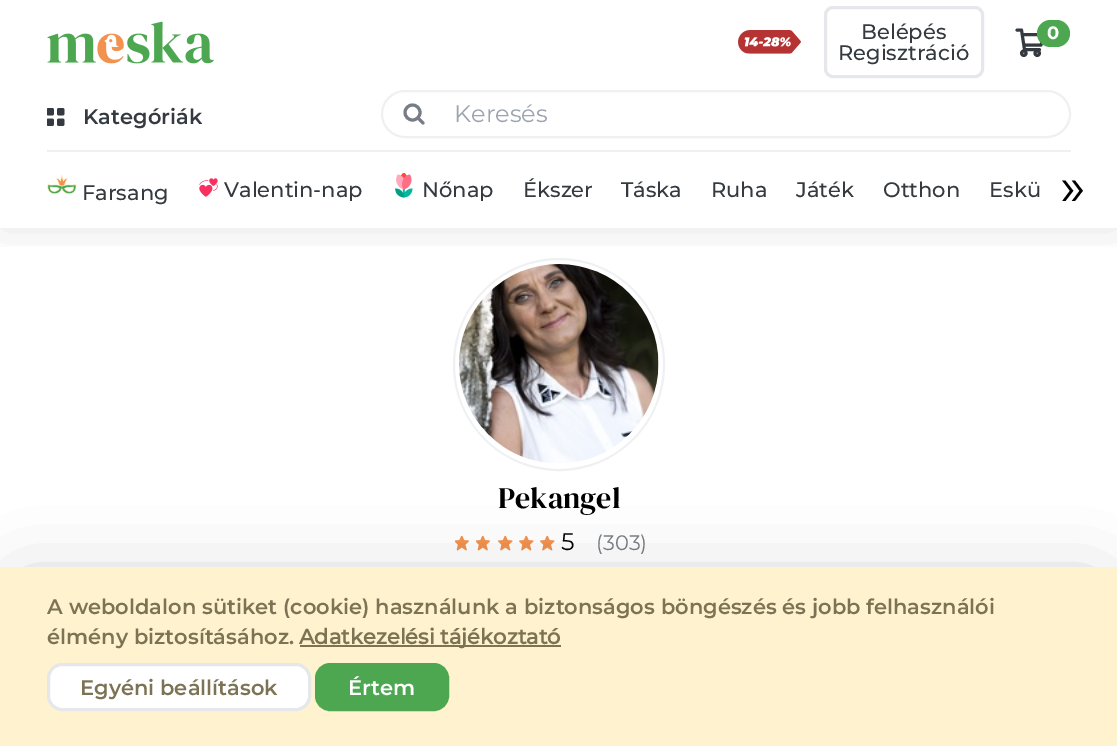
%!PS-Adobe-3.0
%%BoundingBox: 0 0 1117 746
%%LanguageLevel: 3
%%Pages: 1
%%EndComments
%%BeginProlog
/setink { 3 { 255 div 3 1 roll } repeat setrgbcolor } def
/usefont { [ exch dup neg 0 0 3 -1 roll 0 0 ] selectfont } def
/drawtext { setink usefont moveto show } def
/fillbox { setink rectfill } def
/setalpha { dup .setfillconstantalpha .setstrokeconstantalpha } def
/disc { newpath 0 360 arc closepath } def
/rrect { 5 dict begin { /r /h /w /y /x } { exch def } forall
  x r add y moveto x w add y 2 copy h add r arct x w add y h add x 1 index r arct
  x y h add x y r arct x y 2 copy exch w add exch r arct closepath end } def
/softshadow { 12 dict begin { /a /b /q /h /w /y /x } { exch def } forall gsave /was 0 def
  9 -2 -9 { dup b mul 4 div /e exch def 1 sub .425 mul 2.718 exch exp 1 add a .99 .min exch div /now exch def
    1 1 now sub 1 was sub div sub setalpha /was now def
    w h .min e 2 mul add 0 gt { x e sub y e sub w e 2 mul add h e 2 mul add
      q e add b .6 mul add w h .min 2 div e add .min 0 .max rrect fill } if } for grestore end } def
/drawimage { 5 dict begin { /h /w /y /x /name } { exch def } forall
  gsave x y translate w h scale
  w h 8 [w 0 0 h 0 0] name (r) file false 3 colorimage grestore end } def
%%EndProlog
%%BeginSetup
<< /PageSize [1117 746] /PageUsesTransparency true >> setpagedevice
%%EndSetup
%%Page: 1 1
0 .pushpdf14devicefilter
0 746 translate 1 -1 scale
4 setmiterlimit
0 0 1117 746 255 255 255 fillbox
238 240 241 setink
2 setlinewidth
454 259 210 211 105 rrect stroke
(assets/img7.rgb) 459 264 200 199 drawimage
gsave
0 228 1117 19 rectclip
0 0 0 setink
0 0 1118 228 0 22.5 0.1 softshadow
grestore
(assets/img1.rgb) 47 21 167 43 drawimage
(assets/img2.rgb) 738 30 63 24 drawimage
229 231 235 setink
3 setlinewidth
825.5 7.5 157 69 7.5 rrect stroke
(Belépés) 861 39 /Montserrat-Medium 21 52 58 64 drawtext
(Regisztráció) 838 60 /Montserrat-Medium 21 52 58 64 drawtext
1 setlinecap
1 setlinejoin
1017 30 moveto 1021.5 30 lineto 1024.5 49.5 lineto 1039.5 49.5 lineto stroke
0 setlinecap
0 setlinejoin
1023.8 53.2 2.2 disc stroke
1037.2 53.2 2.2 disc stroke
1 setlinejoin
1023 34.5 moveto 1044 34.5 lineto 1041 45 lineto 1023 45 lineto stroke
76 167 80 setink
1037 20 33 27 13.5 rrect fill
(0) 1047 39 /Montserrat-Bold 18 255 255 255 drawtext
(assets/img3.rgb) 47 108 18 18 drawimage
(Kategóriák) 83 124 /Montserrat-SemiBold 21 52 58 64 drawtext
238 240 241 setink
2 setlinewidth
0 setlinejoin
382 91 688 46 23 rrect stroke
118 125 132 setink
3 setlinewidth
412.5 112.5 7.5 disc stroke
1 setlinecap
418.5 118.5 moveto 423 123 lineto stroke
(Keresés) 454 122 /Montserrat-Regular 24 156 163 175 drawtext
47 150 1024 2 238 240 241 fillbox
(assets/img4.rgb) 47 174 30 20 drawimage
(Farsang) 82 200 /Montserrat-Medium 21 52 58 64 drawtext
(assets/img5.rgb) 199 178 19 19 drawimage
(Valentin-nap) 224 197 /Montserrat-Medium 21 52 58 64 drawtext
(assets/img6.rgb) 395 173 18 25 drawimage
(Nőnap) 422 197 /Montserrat-Medium 21 52 58 64 drawtext
(Ékszer) 523 197 /Montserrat-Medium 21 52 58 64 drawtext
(Táska) 621 197 /Montserrat-Medium 21 52 58 64 drawtext
(Ruha) 711 197 /Montserrat-Medium 21 52 58 64 drawtext
(Játék) 796 197 /Montserrat-Medium 21 52 58 64 drawtext
(Otthon) 883 197 /Montserrat-Medium 21 52 58 64 drawtext
(Eskü) 989 197 /Montserrat-Medium 21 52 58 64 drawtext
(») 1060 205 /Montserrat-Regular 54 0 0 0 drawtext
(Pekangel) 498 508 /DMSerifDisplay-Regular 30 0 0 0 drawtext
(assets/img8.rgb) 455 536 14 15 drawimage
(assets/img8.rgb) 476 536 14 15 drawimage
(assets/img9.rgb) 498 536 15 15 drawimage
(assets/img9.rgb) 519 536 15 15 drawimage
(assets/img9.rgb) 540 536 15 15 drawimage
(5) 561 550 /Montserrat-Regular 24 0 0 0 drawtext
(\(303\)) 596 550 /Montserrat-Regular 21 118 125 132 drawtext
0 0 0 setink
23 590 1072 135 0 37.5 0.25 softshadow
0 567 1117 179 255 242 206 fillbox
(A weboldalon sütiket \(cookie\) használunk a biztonságos böngészés és jobb felhasználói) 47 614 /Montserrat-SemiBold 21 124 115 85 drawtext
(élmény biztosításához.) 47 644 /Montserrat-SemiBold 21 124 115 85 drawtext
300 645 261 2 124 115 85 fillbox
(Adatkezelési tájékoztató) 299 644 /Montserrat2-Bold 21 124 115 85 drawtext
255 255 255 setink
48.5 664.5 261 45 13.5 rrect gsave fill grestore
229 231 235 setink
0 setlinecap
stroke
(Egyéni beállítások) 80 695 /Montserrat-SemiBold 21 124 115 85 drawtext
76 167 80 setink
316.5 664.5 131 45 13.5 rrect gsave fill grestore
stroke
(Értem) 348 695 /Montserrat-SemiBold 21 255 255 255 drawtext
.poppdf14devicefilter showpage
%%EOF
